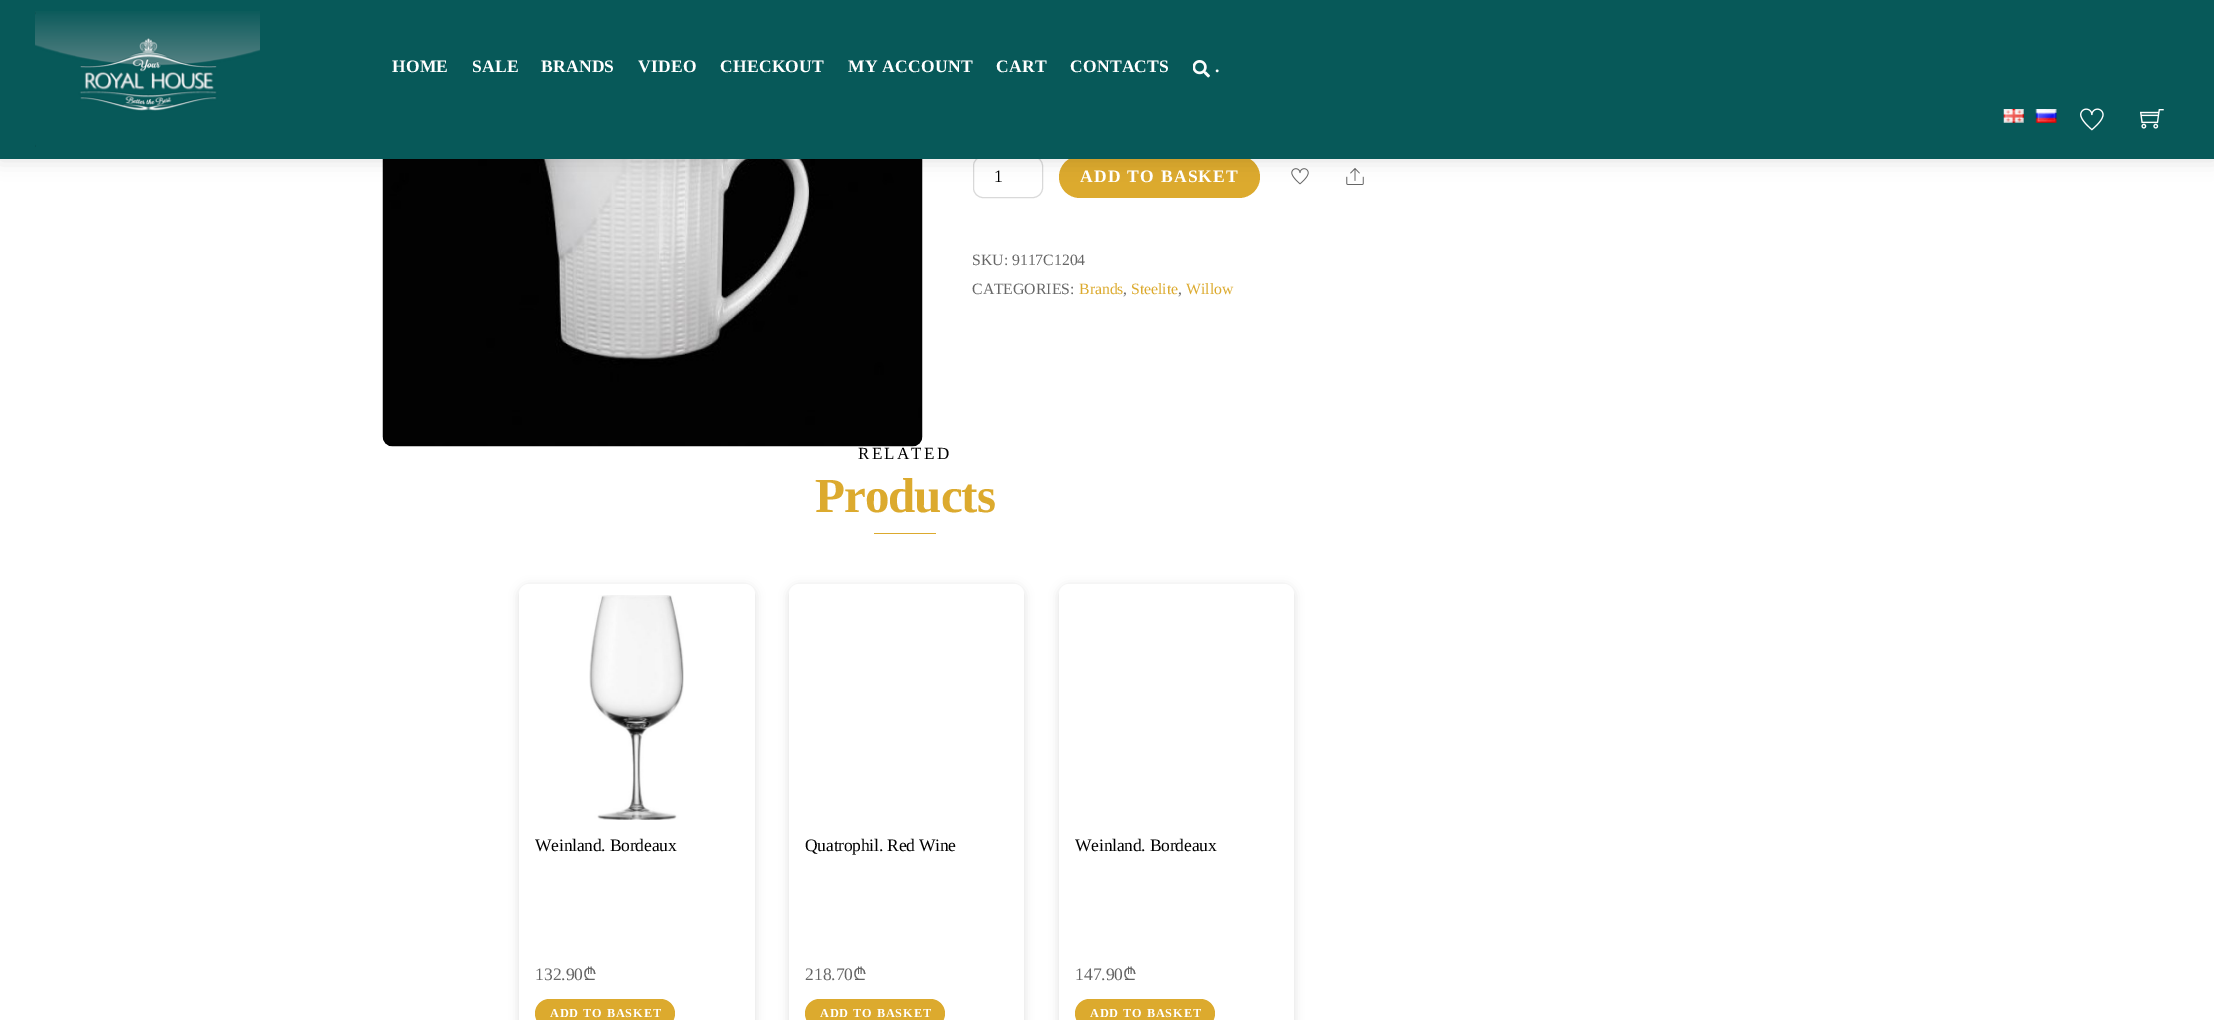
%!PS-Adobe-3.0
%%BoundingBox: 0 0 2214 1020
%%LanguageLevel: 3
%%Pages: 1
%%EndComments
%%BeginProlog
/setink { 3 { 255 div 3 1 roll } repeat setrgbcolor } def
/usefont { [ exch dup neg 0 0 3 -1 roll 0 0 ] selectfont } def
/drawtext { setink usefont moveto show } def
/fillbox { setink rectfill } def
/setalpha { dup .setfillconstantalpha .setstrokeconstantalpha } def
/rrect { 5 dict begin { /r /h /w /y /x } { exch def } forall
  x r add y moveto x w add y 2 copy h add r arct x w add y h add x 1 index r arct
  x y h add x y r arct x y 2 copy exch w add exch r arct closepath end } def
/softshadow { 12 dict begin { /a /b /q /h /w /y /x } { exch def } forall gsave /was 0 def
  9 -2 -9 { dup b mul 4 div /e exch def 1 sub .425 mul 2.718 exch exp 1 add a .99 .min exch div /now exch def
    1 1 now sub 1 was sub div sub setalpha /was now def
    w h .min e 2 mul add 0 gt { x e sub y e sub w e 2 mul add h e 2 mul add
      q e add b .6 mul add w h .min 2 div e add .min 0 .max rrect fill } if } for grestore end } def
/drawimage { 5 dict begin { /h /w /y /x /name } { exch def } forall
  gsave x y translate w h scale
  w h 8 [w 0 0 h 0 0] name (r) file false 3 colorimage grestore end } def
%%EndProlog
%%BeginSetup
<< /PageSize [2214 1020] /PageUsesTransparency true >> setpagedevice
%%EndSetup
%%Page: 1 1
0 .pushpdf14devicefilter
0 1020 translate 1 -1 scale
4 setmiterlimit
0 0 2214 1020 255 255 255 fillbox
(assets/img7.rgb) 382 159 541 288 drawimage
217 217 217 setink
973.5 156.5 69 41 9.5 rrect stroke
220 170 46 setink
1059 156 201 42 21 rrect fill
(assets/img8.rgb) 1291 168 18 17 drawimage
(assets/img9.rgb) 1346 168 18 17 drawimage
0 0 0 setink
0 1 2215 159 0 9.5 0.12 softshadow
0 0 2214 159 7 89 89 fillbox
(assets/img1.rgb) 35 11 225 136 drawimage
/LiberationSerif-Bold 17.5 usefont
255 255 255 setink
392 72 moveto 0.25 0 (HOME) ashow
472 72 moveto 0.25 0 (SALE) ashow
541 72 moveto 0.25 0 (BRANDS) ashow
638 72 moveto 0.25 0 (VIDEO) ashow
720 72 moveto 0.25 0 (CHECKOUT) ashow
848 72 moveto 0.25 0 (MY ACCOUNT) ashow
996 72 moveto 0.25 0 (CART) ashow
1070 72 moveto 0.25 0 (CONTACTS) ashow
(assets/img2.rgb) 1193 60 17 18 drawimage
1215 72 moveto 0.25 0 (.) ashow
(assets/img3.rgb) 2003 109 21 14 drawimage
(assets/img4.rgb) 2035 109 22 14 drawimage
(assets/img5.rgb) 2080 108 24 23 drawimage
(assets/img6.rgb) 2140 109 24 20 drawimage
(1) 994 182 /LiberationSerif-Regular 17.5 0 0 0 drawtext
/LiberationSerif-Bold 17.5 usefont
255 255 255 setink
1080 182 moveto 1.25 0 (ADD TO BASKET) ashow
(SKU: 9117C1204) 972 265 /LiberationSerif-Regular 15.75 102 102 102 drawtext
(CATEGORIES:) 972 294 /LiberationSerif-Regular 15.75 102 102 102 drawtext
(Brands) 1079 294 /LiberationSerif-Regular 15.75 220 170 46 drawtext
(,) 1123 294 /LiberationSerif-Regular 15.75 102 102 102 drawtext
(Steelite) 1131 294 /LiberationSerif-Regular 15.75 220 170 46 drawtext
(,) 1178 294 /LiberationSerif-Regular 15.75 102 102 102 drawtext
(Willow) 1186 294 /LiberationSerif-Regular 15.75 220 170 46 drawtext
/LiberationSerif-Regular 17 usefont
0 0 0 setink
858 459 moveto 2.25 0 (RELATED) ashow
/LiberationSerif-Bold 49 usefont
220 170 46 setink
815 512 moveto -1 0 (Products) ashow
874 533 62 1 220 170 46 fillbox
0 0 0 setink
519 586 236 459 10 5 0.12 softshadow
255 255 255 setink
519 584 236 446 10 rrect fill
(assets/img10.rgb) 589 595 95 225 drawimage
/LiberationSerif-Regular 17.5 usefont
0 0 0 setink
535 851 moveto -0.2 0 (Weinland. Bordeaux) ashow
(132.90) 535 980 /LiberationSerif-Regular 17.5 102 102 102 drawtext
(₾) 583 980 /NotoSans-Regular 17.5 102 102 102 drawtext
220 170 46 setink
535 999 140 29 14.5 rrect fill
/LiberationSerif-Bold 12.25 usefont
255 255 255 setink
550 1017 moveto 0.9 0 (ADD TO BASKET) ashow
0 0 0 setink
789 586 235 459 10 5 0.12 softshadow
255 255 255 setink
789 584 235 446 10 rrect fill
/LiberationSerif-Regular 17.5 usefont
0 0 0 setink
805 851 moveto -0.2 0 (Quatrophil. Red Wine) ashow
(218.70) 805 980 /LiberationSerif-Regular 17.5 102 102 102 drawtext
(₾) 853 980 /NotoSans-Regular 17.5 102 102 102 drawtext
220 170 46 setink
805 999 140 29 14.5 rrect fill
/LiberationSerif-Bold 12.25 usefont
255 255 255 setink
820 1017 moveto 0.9 0 (ADD TO BASKET) ashow
0 0 0 setink
1059 586 235 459 10 5 0.12 softshadow
255 255 255 setink
1059 584 235 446 10 rrect fill
/LiberationSerif-Regular 17.5 usefont
0 0 0 setink
1075 851 moveto -0.2 0 (Weinland. Bordeaux) ashow
(147.90) 1075 980 /LiberationSerif-Regular 17.5 102 102 102 drawtext
(₾) 1123 980 /NotoSans-Regular 17.5 102 102 102 drawtext
220 170 46 setink
1075 999 140 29 14.5 rrect fill
/LiberationSerif-Bold 12.25 usefont
255 255 255 setink
1090 1017 moveto 0.9 0 (ADD TO BASKET) ashow
.poppdf14devicefilter showpage
%%EOF
